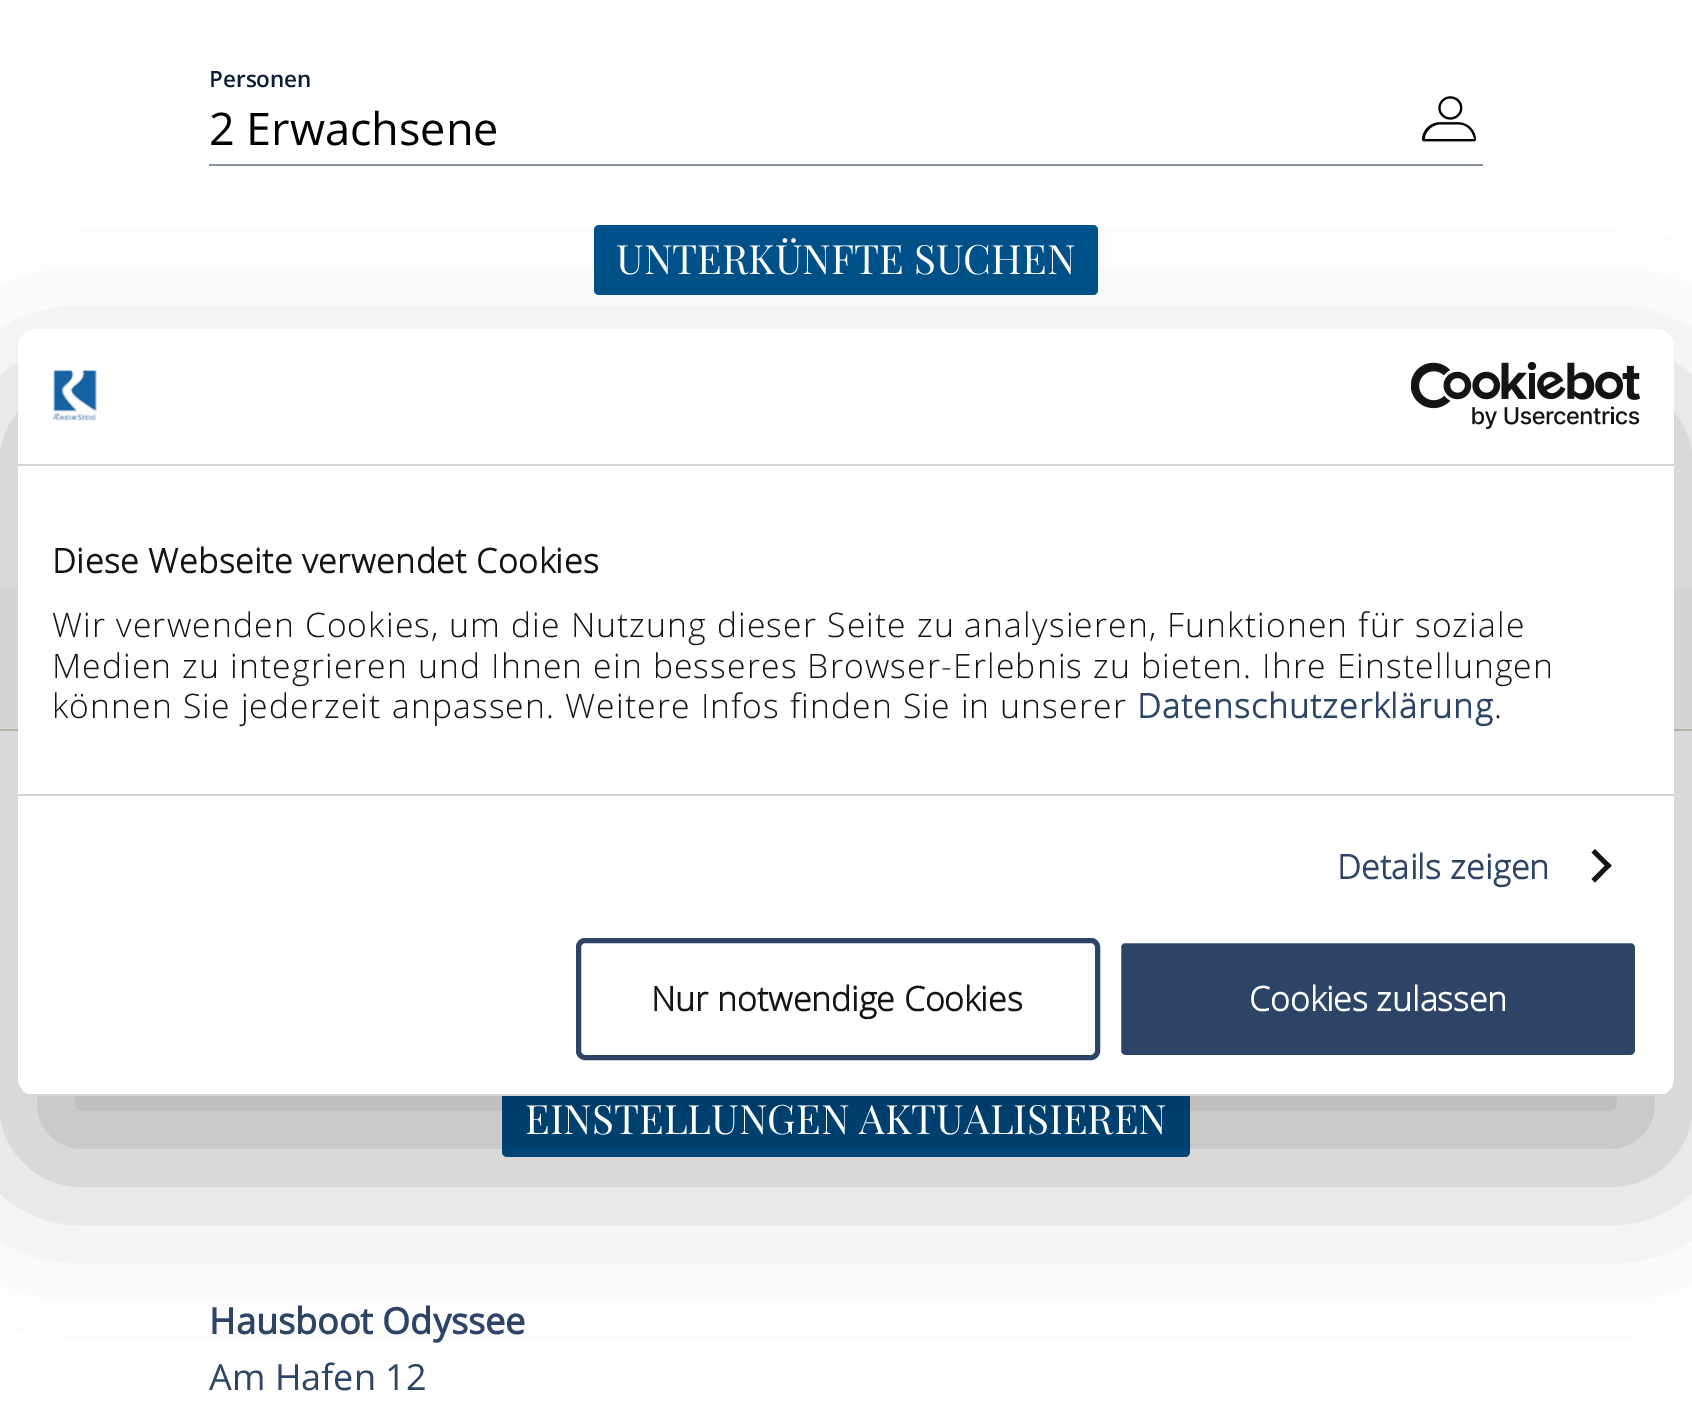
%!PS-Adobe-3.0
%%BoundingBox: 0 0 1692 1421
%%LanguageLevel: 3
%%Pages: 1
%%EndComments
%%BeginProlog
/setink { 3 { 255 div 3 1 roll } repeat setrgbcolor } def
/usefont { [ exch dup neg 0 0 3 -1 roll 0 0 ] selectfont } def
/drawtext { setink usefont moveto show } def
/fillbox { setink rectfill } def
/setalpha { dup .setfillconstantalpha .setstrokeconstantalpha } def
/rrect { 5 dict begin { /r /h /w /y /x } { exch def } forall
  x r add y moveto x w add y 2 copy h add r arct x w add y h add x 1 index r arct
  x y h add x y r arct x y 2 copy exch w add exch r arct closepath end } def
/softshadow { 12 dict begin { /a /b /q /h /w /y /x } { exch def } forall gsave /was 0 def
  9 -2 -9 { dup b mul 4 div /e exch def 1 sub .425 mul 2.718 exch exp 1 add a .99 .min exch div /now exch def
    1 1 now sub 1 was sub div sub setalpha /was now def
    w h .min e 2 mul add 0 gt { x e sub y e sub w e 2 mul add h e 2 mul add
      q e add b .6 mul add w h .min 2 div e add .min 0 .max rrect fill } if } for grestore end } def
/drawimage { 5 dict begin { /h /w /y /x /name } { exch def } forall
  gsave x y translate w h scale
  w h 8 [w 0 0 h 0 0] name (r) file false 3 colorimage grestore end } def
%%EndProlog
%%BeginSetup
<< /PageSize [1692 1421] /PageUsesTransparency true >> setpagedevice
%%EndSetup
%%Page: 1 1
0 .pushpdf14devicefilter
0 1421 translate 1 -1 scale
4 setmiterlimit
0 0 1692 1421 255 255 255 fillbox
(Personen) 209 87 /OpenSans-SemiBold 22.5 11 29 56 drawtext
209 164 1274 2 134 143 157 fillbox
(2 Erwachsene) 209 145 /OpenSans-Regular 45 0 0 0 drawtext
(assets/img1.rgb) 1422 96 54 46 drawimage
0 82 139 setink
594 225 504 70 5 rrect fill
(UNTERKÜNFTE SUCHEN) 616 274 /PlayfairDisplay-Regular 40.5 255 255 255 drawtext
0 587 1692 142 249 249 249 fillbox
0 729 1692 2 202 210 193 fillbox
0 82 139 setink
502 1085 688 72 5 rrect fill
0 0 0 setink
18 401 1656 767 18 76.5 0.3 softshadow
255 255 255 setink
18 329 1656 767 18 rrect fill
18 464 1656 2 214 214 214 fillbox
(assets/img2.rgb) 52 370 45 51 drawimage
(assets/img3.rgb) 1411 362 229 67 drawimage
18 794 1656 2 214 214 214 fillbox
/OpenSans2-Bold 33.75 usefont
20 20 20 setink
52 573 moveto 0.55 0 (Diese Webseite verwendet Cookies) ashow
/OpenSans-Light 33.75 usefont
52 637 moveto 1.12 0 (Wir verwenden Cookies, um die Nutzung dieser Seite zu analysieren, Funktionen für soziale) ashow
52 678 moveto 1.12 0 (Medien zu integrieren und Ihnen ein besseres Browser-Erlebnis zu bieten. Ihre Einstellungen) ashow
52 718 moveto 1.12 0 (können Sie jederzeit anpassen. Weitere Infos finden Sie in unserer) ashow
/OpenSans2-Bold 33.75 usefont
45 68 103 setink
1137 718 moveto 1.12 0 (Datenschutzerklärung) ashow
/OpenSans-Light 33.75 usefont
20 20 20 setink
1494 718 moveto 1.12 0 (.) ashow
/OpenSans2-Bold 33.75 usefont
45 68 103 setink
1337 879 moveto 0.25 0 (Details zeigen) ashow
20 20 20 setink
1595 849 moveto 1611.5 865.5 lineto 1608 869 lineto 1591.5 852.5 lineto closepath fill
1608 862.5 moveto 1611.5 865.5 lineto 1595 882.5 lineto 1591.5 879 lineto closepath fill
gsave
18 329 1656 767 18 rrect clip newpath
28 1094 1636 2 214 214 214 fillbox
grestore
45 68 103 setink
5 setlinewidth
578.5 940.5 519 117 6.5 rrect stroke
(Nur notwendige Cookies) 651 1011 /OpenSans2-Bold 33.75 20 20 20 drawtext
45 68 103 setink
1118.5 940.5 519 117 6.5 rrect gsave fill grestore
255 255 255 setink
stroke
(Cookies zulassen) 1249 1011 /OpenSans2-Bold 33.75 255 255 255 drawtext
(EINSTELLUNGEN AKTUALISIEREN) 525 1134 /PlayfairDisplay-Regular 40.5 255 255 255 drawtext
(Hausboot Odyssee) 209 1334 /OpenSans-Bold 36 45 68 103 drawtext
(Am Hafen 12) 209 1390 /OpenSans-Regular 36 45 68 103 drawtext
.poppdf14devicefilter showpage
%%EOF
